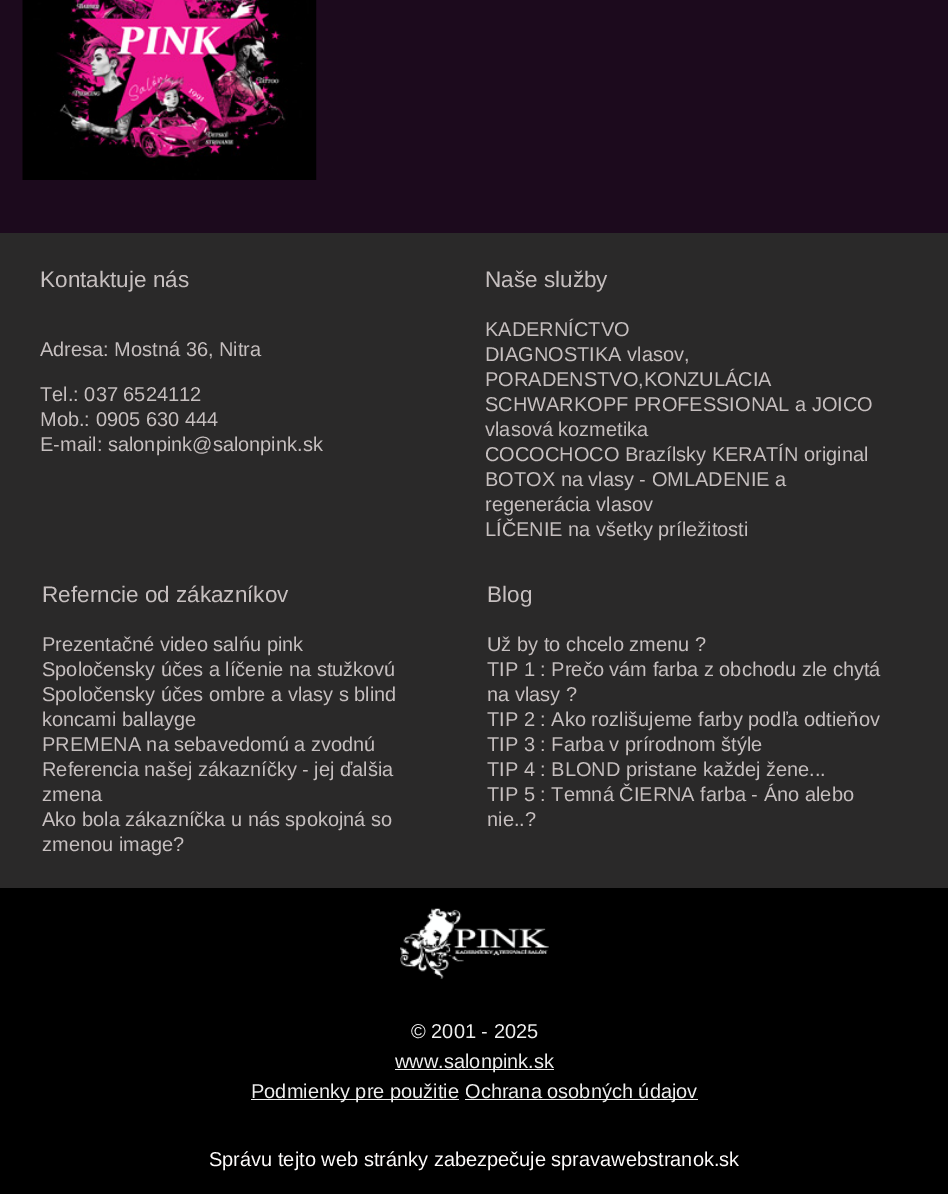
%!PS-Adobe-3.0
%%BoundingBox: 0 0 948 1194
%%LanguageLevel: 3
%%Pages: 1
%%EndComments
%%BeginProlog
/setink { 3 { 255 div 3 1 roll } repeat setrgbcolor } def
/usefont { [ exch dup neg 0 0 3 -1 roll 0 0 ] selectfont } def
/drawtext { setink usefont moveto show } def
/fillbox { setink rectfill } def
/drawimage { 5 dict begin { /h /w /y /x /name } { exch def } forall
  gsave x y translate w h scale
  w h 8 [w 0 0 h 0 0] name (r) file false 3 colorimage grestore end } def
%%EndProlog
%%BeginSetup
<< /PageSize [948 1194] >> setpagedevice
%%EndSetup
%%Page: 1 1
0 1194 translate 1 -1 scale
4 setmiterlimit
0 0 948 1194 28 10 29 fillbox
(assets/img1.rgb) 22 0 295 180 drawimage
0 233 948 655 42 41 41 fillbox
(Kontaktuje nás) 40 287 /LiberationSans-Regular 22.5 198 191 191 drawtext
(Adresa: Mostná 36, Nitra) 40 356 /LiberationSans-Regular 20 198 191 191 drawtext
(Tel.: 037 6524112) 40 401 /LiberationSans-Regular 20 198 191 191 drawtext
(Mob.: 0905 630 444) 40 426 /LiberationSans-Regular 20 198 191 191 drawtext
(E-mail: salonpink@salonpink.sk) 40 451 /LiberationSans-Regular 20 198 191 191 drawtext
(Naše služby) 485 287 /LiberationSans-Regular 22.5 198 191 191 drawtext
(KADERNÍCTVO) 485 336 /LiberationSans-Regular 20 198 191 191 drawtext
(DIAGNOSTIKA vlasov,) 485 361 /LiberationSans-Regular 20 198 191 191 drawtext
(PORADENSTVO,KONZULÁCIA) 485 386 /LiberationSans-Regular 20 198 191 191 drawtext
(SCHWARKOPF PROFESSIONAL a JOICO) 485 411 /LiberationSans-Regular 20 198 191 191 drawtext
(vlasová kozmetika) 485 436 /LiberationSans-Regular 20 198 191 191 drawtext
(COCOCHOCO Brazílsky KERATÍN original) 485 461 /LiberationSans-Regular 20 198 191 191 drawtext
(BOTOX na vlasy - OMLADENIE a) 485 486 /LiberationSans-Regular 20 198 191 191 drawtext
(regenerácia vlasov) 485 511 /LiberationSans-Regular 20 198 191 191 drawtext
(LÍČENIE na všetky príležitosti) 485 536 /LiberationSans-Regular 20 198 191 191 drawtext
(Referncie od zákazníkov) 42 602 /LiberationSans-Regular 22.5 198 191 191 drawtext
(Prezentačné video salńu pink) 42 651 /LiberationSans-Regular 20 198 191 191 drawtext
(Spoločensky účes a líčenie na stužkovú) 42 676 /LiberationSans-Regular 20 198 191 191 drawtext
(Spoločensky účes ombre a vlasy s blind) 42 701 /LiberationSans-Regular 20 198 191 191 drawtext
(koncami ballayge) 42 726 /LiberationSans-Regular 20 198 191 191 drawtext
(PREMENA na sebavedomú a zvodnú) 42 751 /LiberationSans-Regular 20 198 191 191 drawtext
(Referencia našej zákazníčky - jej ďalšia) 42 776 /LiberationSans-Regular 20 198 191 191 drawtext
(zmena) 42 801 /LiberationSans-Regular 20 198 191 191 drawtext
(Ako bola zákazníčka u nás spokojná so) 42 826 /LiberationSans-Regular 20 198 191 191 drawtext
(zmenou image?) 42 851 /LiberationSans-Regular 20 198 191 191 drawtext
(Blog) 487 602 /LiberationSans-Regular 22.5 198 191 191 drawtext
(Už by to chcelo zmenu ?) 487 651 /LiberationSans-Regular 20 198 191 191 drawtext
(TIP 1 : Prečo vám farba z obchodu zle chytá) 487 676 /LiberationSans-Regular 20 198 191 191 drawtext
(na vlasy ?) 487 701 /LiberationSans-Regular 20 198 191 191 drawtext
(TIP 2 : Ako rozlišujeme farby podľa odtieňov) 487 726 /LiberationSans-Regular 20 198 191 191 drawtext
(TIP 3 : Farba v prírodnom štýle) 487 751 /LiberationSans-Regular 20 198 191 191 drawtext
(TIP 4 : BLOND pristane každej žene...) 487 776 /LiberationSans-Regular 20 198 191 191 drawtext
(TIP 5 : Temná ČIERNA farba - Áno alebo) 487 801 /LiberationSans-Regular 20 198 191 191 drawtext
(nie..?) 487 826 /LiberationSans-Regular 20 198 191 191 drawtext
0 888 948 306 0 0 0 fillbox
(assets/img2.rgb) 400 908 149 71 drawimage
(© 2001 - 2025) 411 1038 /LiberationSans-Regular 20 238 238 238 drawtext
395 1069 159 1 238 238 238 fillbox
(www.salonpink.sk) 395 1068 /LiberationSans-Regular 20 238 238 238 drawtext
251 1099 208 1 238 238 238 fillbox
(Podmienky pre použitie) 251 1098 /LiberationSans-Regular 20 238 238 238 drawtext
465 1099 233 1 238 238 238 fillbox
(Ochrana osobných údajov) 465 1098 /LiberationSans-Regular 20 238 238 238 drawtext
(Správu tejto web stránky zabezpečuje spravawebstranok.sk) 209 1166 /LiberationSans-Regular 20 254 251 251 drawtext
showpage
%%EOF
